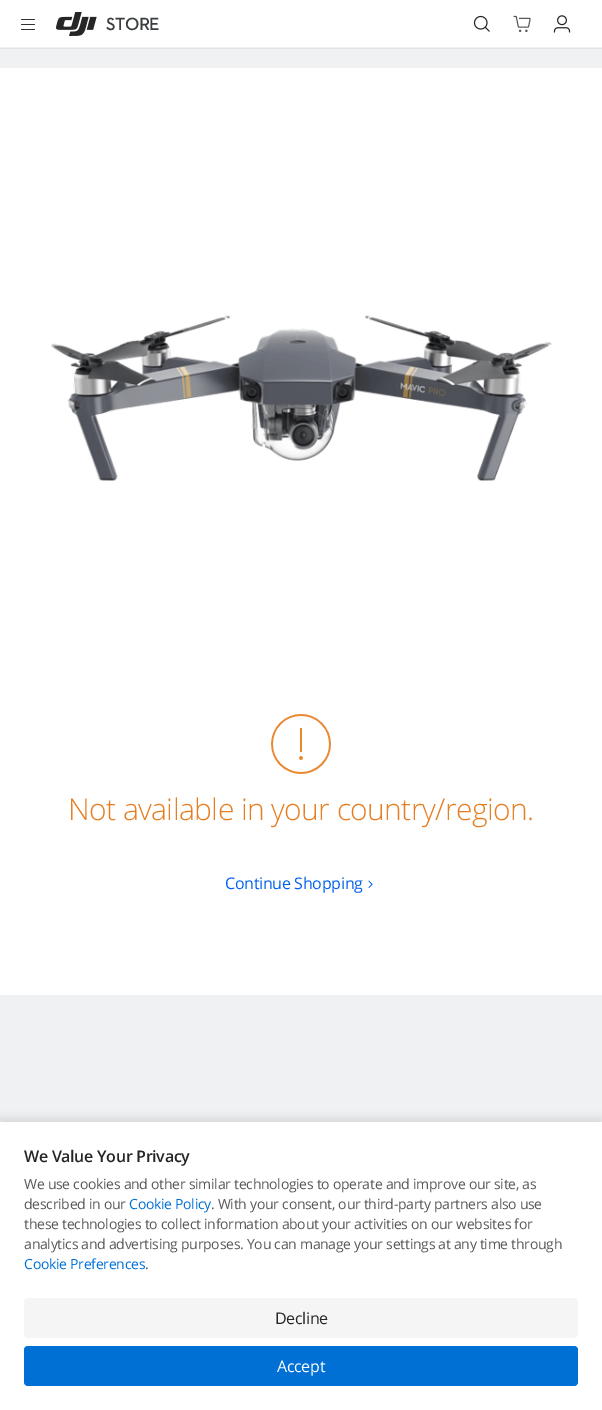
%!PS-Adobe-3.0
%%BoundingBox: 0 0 602 1410
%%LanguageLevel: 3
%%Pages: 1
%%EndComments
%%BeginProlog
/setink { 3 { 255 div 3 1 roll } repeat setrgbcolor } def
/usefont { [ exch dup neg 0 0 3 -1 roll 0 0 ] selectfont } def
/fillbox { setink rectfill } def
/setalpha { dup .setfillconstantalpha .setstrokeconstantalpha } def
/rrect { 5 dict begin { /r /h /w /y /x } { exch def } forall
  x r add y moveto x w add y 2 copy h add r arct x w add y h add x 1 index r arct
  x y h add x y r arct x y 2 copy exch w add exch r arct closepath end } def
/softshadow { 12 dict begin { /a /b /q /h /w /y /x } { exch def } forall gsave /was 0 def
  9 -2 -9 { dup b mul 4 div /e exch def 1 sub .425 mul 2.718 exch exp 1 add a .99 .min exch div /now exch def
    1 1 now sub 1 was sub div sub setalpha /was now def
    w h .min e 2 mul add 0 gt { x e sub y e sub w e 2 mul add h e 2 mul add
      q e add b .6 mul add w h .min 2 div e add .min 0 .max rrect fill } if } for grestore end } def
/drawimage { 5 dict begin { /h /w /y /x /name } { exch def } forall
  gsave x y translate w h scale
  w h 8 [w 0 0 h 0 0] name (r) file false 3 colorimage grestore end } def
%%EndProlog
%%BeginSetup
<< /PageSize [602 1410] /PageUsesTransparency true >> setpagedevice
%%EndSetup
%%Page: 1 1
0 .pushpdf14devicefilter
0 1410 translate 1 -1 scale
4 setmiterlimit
0 0 602 1410 240 241 242 fillbox
0 0 602 47 255 255 255 fillbox
48 50 51 setink
21 19 moveto 34 19 lineto 34.5 19 35 19.5 35 20 curveto 22 20 lineto 21.5 20 21 19.5 21 19 curveto closepath fill
21 24 moveto 34 24 lineto 34.5 24 35 24.5 35 25 curveto 22 25 lineto 21.5 25 21 24.5 21 24 curveto closepath fill
21 29 moveto 34 29 lineto 34.5 29 35 29.5 35 30 curveto 22 30 lineto 21.5 30 21 29.5 21 29 curveto closepath fill
(assets/img1.rgb) 56 12 41 24 drawimage
/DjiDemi-Regular 18 usefont
59 62 64 setink
106 30 moveto -0.5 0 (STORE) ashow
(assets/img2.rgb) 473 15 17 17 drawimage
(assets/img3.rgb) 513 15 18 18 drawimage
(assets/img4.rgb) 553 15 18 18 drawimage
0 48 602 1 226 227 227 fillbox
0 68 602 927 255 255 255 fillbox
(assets/img5.rgb) 51 315 501 166 drawimage
(assets/img6.rgb) 271 714 60 60 drawimage
/OpenSans-Light 30 usefont
230 126 34 setink
68 820 moveto -0.6 0 (Not available in your country/region.) ashow
/OpenSans-Regular 16 usefont
0 96 239 setink
225 889 moveto -0.3 0 (Continue Shopping) ashow
(assets/img7.rgb) 368 880 5 9 drawimage
0 0 0 setink
0 1118 602 288 0 4 0.1 softshadow
0 1122 602 288 255 255 255 fillbox
/OpenSans-SemiBold 16 usefont
38 38 38 setink
24 1162 moveto -0.3 0 (We Value Your Privacy) ashow
/OpenSans-Regular 14 usefont
89 89 89 setink
24 1189 moveto -0.28 0 (We use cookies and other similar technologies to operate and improve our site, as) ashow
24 1209 moveto -0.28 0 (described in our) ashow
0 112 213 setink
129 1209 moveto -0.28 0 (Cookie Policy) ashow
89 89 89 setink
211 1209 moveto -0.28 0 (. With your consent, our third-party partners also use) ashow
24 1229 moveto -0.28 0 (these technologies to collect information about your activities on our websites for) ashow
24 1249 moveto -0.28 0 (analytics and advertising purposes. You can manage your settings at any time through) ashow
0 112 213 setink
24 1269 moveto -0.28 0 (Cookie Preferences) ashow
89 89 89 setink
145 1269 moveto -0.28 0 (.) ashow
245 245 245 setink
24 1298 554 40 4 rrect fill
/OpenSans-Regular 16 usefont
38 38 38 setink
275 1324 moveto -0.3 0 (Decline) ashow
0 112 213 setink
24 1346 554 40 4 rrect fill
255 255 255 setink
277 1372 moveto -0.3 0 (Accept) ashow
.poppdf14devicefilter showpage
%%EOF
